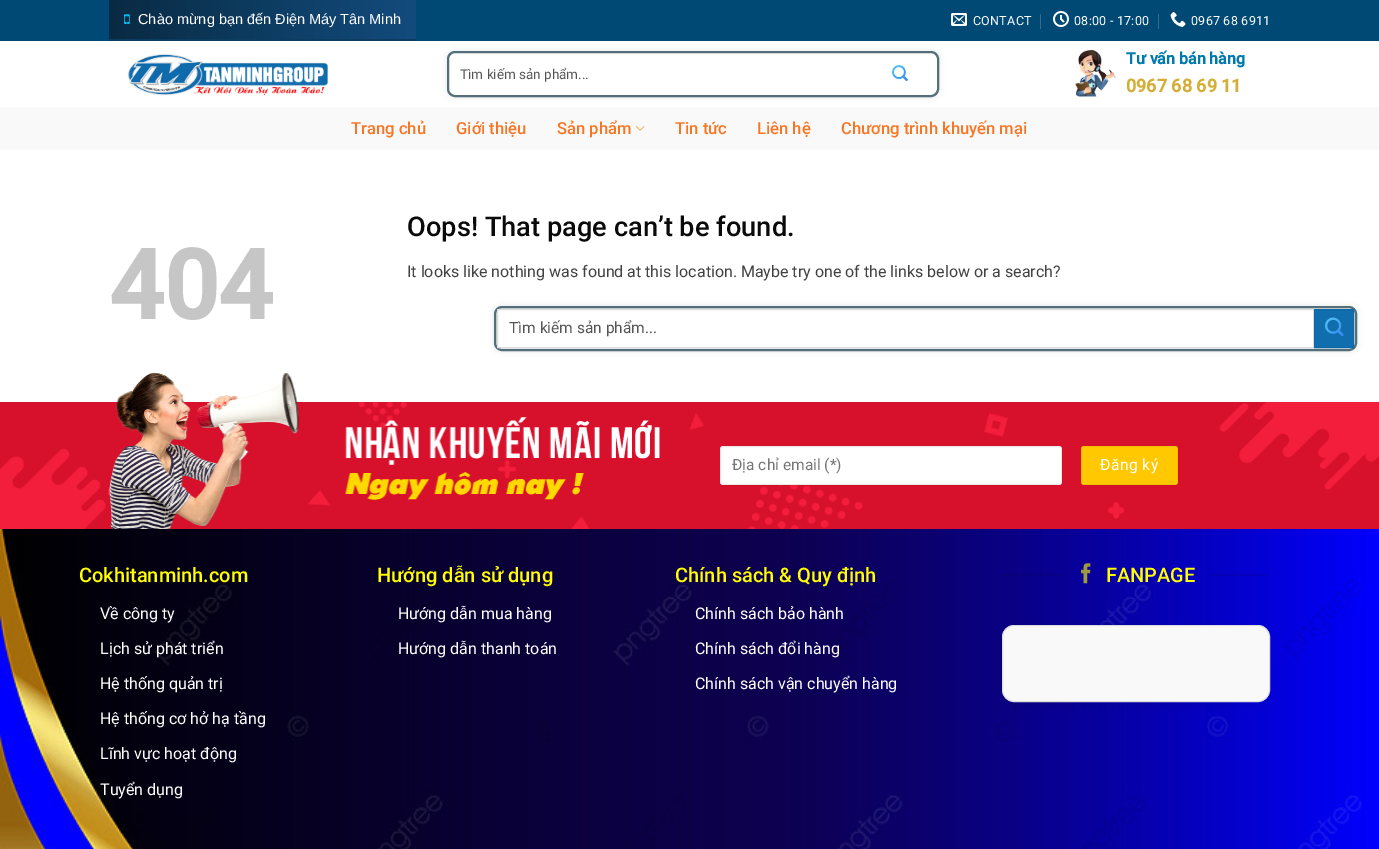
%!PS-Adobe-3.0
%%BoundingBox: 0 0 1379 849
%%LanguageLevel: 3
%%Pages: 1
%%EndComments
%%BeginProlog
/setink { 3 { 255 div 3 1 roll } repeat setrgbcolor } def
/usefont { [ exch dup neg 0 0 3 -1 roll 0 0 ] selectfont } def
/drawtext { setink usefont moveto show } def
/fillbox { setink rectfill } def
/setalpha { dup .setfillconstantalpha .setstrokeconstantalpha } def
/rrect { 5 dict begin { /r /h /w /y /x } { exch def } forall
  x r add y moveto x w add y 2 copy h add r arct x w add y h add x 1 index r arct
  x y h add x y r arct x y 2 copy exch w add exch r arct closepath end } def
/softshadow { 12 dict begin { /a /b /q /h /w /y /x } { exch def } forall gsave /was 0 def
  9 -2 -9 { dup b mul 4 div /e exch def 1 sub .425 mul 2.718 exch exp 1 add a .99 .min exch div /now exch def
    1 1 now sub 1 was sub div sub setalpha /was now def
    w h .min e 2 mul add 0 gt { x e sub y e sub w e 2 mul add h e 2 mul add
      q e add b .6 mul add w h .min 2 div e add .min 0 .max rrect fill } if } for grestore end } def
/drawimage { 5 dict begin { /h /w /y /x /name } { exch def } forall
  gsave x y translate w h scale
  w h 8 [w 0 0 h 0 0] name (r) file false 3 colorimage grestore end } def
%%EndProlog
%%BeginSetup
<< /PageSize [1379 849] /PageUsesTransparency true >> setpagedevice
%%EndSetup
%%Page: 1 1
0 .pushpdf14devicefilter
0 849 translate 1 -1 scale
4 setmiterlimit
0 0 1379 849 255 255 255 fillbox
0 0 1379 41 0 73 116 fillbox
gsave 109 0 moveto 416 0 lineto 416 39 lineto 109 39 lineto closepath clip newpath
<< /ShadingType 2 /ColorSpace /DeviceRGB /Coords [109 20 416 19] /Extend [true true] /Function << /FunctionType 3 /Domain [0 1] /Functions [<< /FunctionType 2 /Domain [0 1] /C0 [0.039 0.165 0.263] /C1 [0.051 0.235 0.38] /N 1 >> << /FunctionType 2 /Domain [0 1] /C0 [0.051 0.235 0.38] /C1 [0.075 0.294 0.49] /N 1 >>] /Bounds [0.5] /Encode [0 1 0 1] >> >> shfill grestore
109 39 307 2 13 60 97 fillbox
(assets/img1.rgb) 124 14 6 10 drawimage
(Chào mừng bạn đến Điện Máy Tân Minh) 138 24 /LiberationSans-Regular 14.5 255 255 255 drawtext
(assets/img2.rgb) 951 13 16 13 drawimage
/Roboto-Regular 12.5 usefont
973 25 moveto 0.25 0 (CONTACT) ashow
1040 14 1 15 51 109 144 fillbox
(assets/img3.rgb) 1053 11 16 16 drawimage
255 255 255 setink
1074 25 moveto 0.25 0 (08:00 - 17:00) ashow
1158 14 1 15 51 109 144 fillbox
(assets/img4.rgb) 1170 12 16 15 drawimage
255 255 255 setink
1191 25 moveto 0.25 0 (0967 68 6911) ashow
(assets/img5.rgb) 127 53 201 43 drawimage
gsave
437 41 moveto 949 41 lineto 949 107 lineto 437 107 lineto closepath 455 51 moveto 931 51 lineto 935.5 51 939 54.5 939 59 curveto 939 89 lineto 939 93.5 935.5 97 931 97 curveto 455 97 lineto 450.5 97 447 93.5 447 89 curveto 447 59 lineto 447 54.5 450.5 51 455 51 curveto closepath eoclip newpath
84 110 122 setink
447 51 492 46 8 3 0.2 softshadow
grestore
84 110 122 setink
2 setlinewidth
448 52 490 44 7 rrect stroke
(Tìm kiếm sản phẩm...) 460 79 /Roboto-Regular 13.5 85 85 85 drawtext
(assets/img6.rgb) 892 65 16 16 drawimage
(assets/img7.rgb) 1075 50 41 47 drawimage
(Tư vấn bán hàng) 1126 64 /Roboto-Bold 16 0 122 174 drawtext
(0967 68 69 11) 1126 92 /Roboto-Bold 18 212 175 55 drawtext
0 107 1379 43 249 249 249 fillbox
(Trang chủ) 351 134 /Roboto-Medium 16.6 248 117 36 drawtext
(Giới thiệu) 456 134 /Roboto-Medium 16.6 248 117 36 drawtext
(Sản phẩm) 557 134 /Roboto-Medium 16.6 248 117 36 drawtext
(assets/img8.rgb) 635 125 10 6 drawimage
(Tin tức) 675 134 /Roboto-Medium 16.6 248 117 36 drawtext
(Liên hệ) 757 134 /Roboto-Medium 16.6 248 117 36 drawtext
(Chương trình khuyến mại) 841 134 /Roboto-Medium 16.6 248 117 36 drawtext
(404) 109 319 /Roboto-Bold 96 198 198 198 drawtext
(Oops! That page can’t be found.) 407 236 /Roboto-Medium 27.25 10 10 10 drawtext
(It looks like nothing was found at this location. Maybe try one of the links below or a search?) 407 277 /Roboto-Regular 16 66 66 66 drawtext
84 110 122 setink
494 306 863 45 8 3 0.2 softshadow
495 307 861 43 7 rrect stroke
255 255 255 setink
497.5 309.5 moveto 1313.5 309.5 lineto 1313.5 347.5 lineto 497.5 347.5 lineto closepath gsave fill grestore
221 221 221 setink
1 setlinewidth
stroke
(Tìm kiếm sản phẩm...) 509 333 /Roboto-Regular 15.5 85 85 85 drawtext
16 109 174 setink
1314.5 309.5 moveto 1353.5 309.5 lineto 1353.5 347.5 lineto 1314.5 347.5 lineto closepath gsave fill grestore
15 104 165 setink
stroke
(assets/img9.rgb) 1325 317 19 20 drawimage
(assets/img10.rgb) 0 402 1379 127 drawimage
(assets/img11.rgb) 109 372 551 157 drawimage
255 255 255 setink
720 446 342 39 3 rrect fill
0.09 setalpha
0 0 0 setink
720.5 446.5 341 38 2.5 rrect stroke
1 setalpha
(Địa chỉ email \(*\)) 732 470 /Roboto-Regular 15.5 117 117 117 drawtext
255 200 0 setink
1081 446 97 39 3 rrect fill
0.05 setalpha
0 0 0 setink
1081.5 446.5 96 38 rectstroke
1 setalpha
255 255 255 setink
1100 470 moveto 0.5 0 (Đăng ký) ashow
(assets/img12.rgb) 0 529 1379 320 drawimage
(Cokhitanminh.com) 79 582 /Roboto-Medium 20 255 255 0 drawtext
(Về công ty) 100 619 /Roboto-Regular 16 255 255 255 drawtext
(Lịch sử phát triển) 100 654 /Roboto-Regular 16 255 255 255 drawtext
(Hệ thống quản trị) 100 689 /Roboto-Regular 16 255 255 255 drawtext
(Hệ thống cơ hở hạ tầng) 100 724 /Roboto-Regular 16 255 255 255 drawtext
(Lĩnh vực hoạt động) 100 759 /Roboto-Regular 16 255 255 255 drawtext
(Tuyển dụng) 100 795 /Roboto-Regular 16 255 255 255 drawtext
(Hướng dẫn sử dụng) 377 582 /Roboto-Medium 20 255 255 0 drawtext
(Hướng dẫn mua hàng) 398 619 /Roboto-Regular 16 255 255 255 drawtext
(Hướng dẫn thanh toán) 398 654 /Roboto-Regular 16 255 255 255 drawtext
(Chính sách & Quy định) 675 582 /Roboto-Medium 20 255 255 0 drawtext
(Chính sách bảo hành) 695 619 /Roboto-Regular 16 255 255 255 drawtext
(Chính sách đổi hàng) 695 654 /Roboto-Regular 16 255 255 255 drawtext
(Chính sách vận chuyển hàng) 695 689 /Roboto-Regular 16 255 255 255 drawtext
0.1 setalpha
1002 574 59 2 10 10 10 fillbox
1 setalpha
(assets/img13.rgb) 1081 563 10 21 drawimage
(FANPAGE) 1106 582 /Roboto-Medium 20 255 255 0 drawtext
0.1 setalpha
1211 574 59 2 10 10 10 fillbox
1 setalpha
0 0 0 setink
1002 629 268 77 12 5 0.05 softshadow
249 249 249 setink
1002.5 625.5 267 76 11.5 rrect gsave fill grestore
221 221 221 setink
stroke
.poppdf14devicefilter showpage
%%EOF
